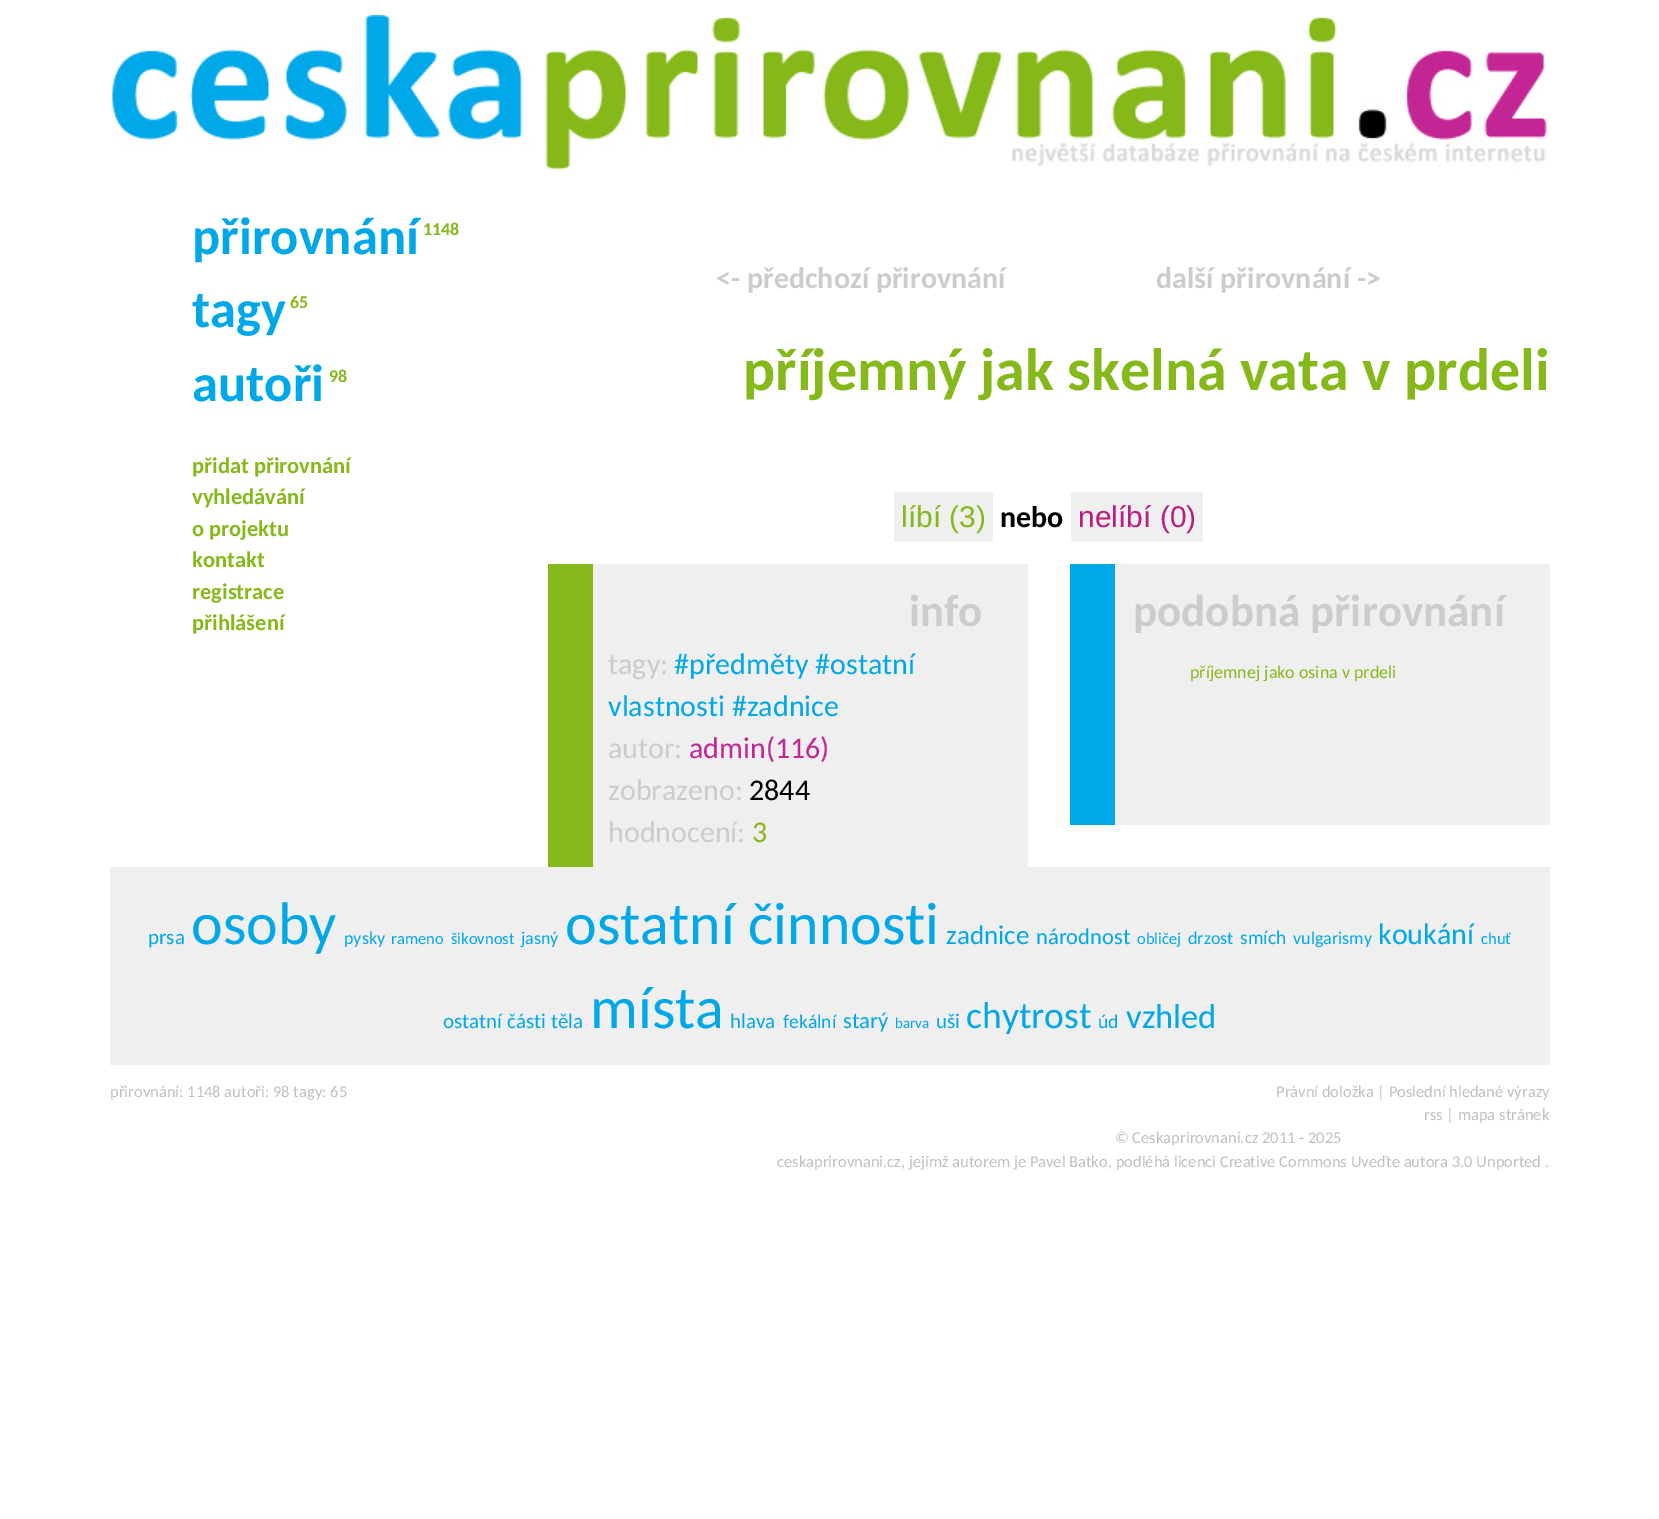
%!PS-Adobe-3.0
%%BoundingBox: 0 0 1659 1519
%%LanguageLevel: 3
%%Pages: 1
%%EndComments
%%BeginProlog
/setink { 3 { 255 div 3 1 roll } repeat setrgbcolor } def
/usefont { [ exch dup neg 0 0 3 -1 roll 0 0 ] selectfont } def
/drawtext { setink usefont moveto show } def
/fillbox { setink rectfill } def
/drawimage { 5 dict begin { /h /w /y /x /name } { exch def } forall
  gsave x y translate w h scale
  w h 8 [w 0 0 h 0 0] name (r) file false 3 colorimage grestore end } def
%%EndProlog
%%BeginSetup
<< /PageSize [1659 1519] >> setpagedevice
%%EndSetup
%%Page: 1 1
0 1519 translate 1 -1 scale
4 setmiterlimit
0 0 1659 1519 255 255 255 fillbox
(assets/img1.rgb) 112 15 1435 155 drawimage
(přirovnání) 192 254 /Carlito-Bold 52.5 0 168 233 drawtext
(1148) 423 235 /Carlito-Bold 18 133 185 25 drawtext
(tagy) 192 327 /Carlito-Bold 52.5 0 168 233 drawtext
(65) 290 308 /Carlito-Bold 18 133 185 25 drawtext
(autoři) 192 401 /Carlito-Bold 52.5 0 168 233 drawtext
(98) 329 382 /Carlito-Bold 18 133 185 25 drawtext
(přidat přirovnání) 192 473 /Carlito-Bold 22.5 133 185 25 drawtext
(vyhledávání) 192 504 /Carlito-Bold 22.5 133 185 25 drawtext
(o projektu) 192 536 /Carlito-Bold 22.5 133 185 25 drawtext
(kontakt) 192 567 /Carlito-Bold 22.5 133 185 25 drawtext
(registrace) 192 599 /Carlito-Bold 22.5 133 185 25 drawtext
(přihlášení) 192 630 /Carlito-Bold 22.5 133 185 25 drawtext
(<- předchozí přirovnání) 716 288 /Carlito-Bold 30 204 204 204 drawtext
(další přirovnání ->) 1156 288 /Carlito-Bold 30 204 204 204 drawtext
(příjemný jak skelná vata v prdeli) 743 390 /Carlito-Bold 60 133 185 25 drawtext
894 492 99 50 239 239 239 fillbox
(líbí \(3\)) 901 527 /LiberationSans-Regular 30 133 185 25 drawtext
(nebo) 1000 527 /Carlito-Bold 30 0 0 0 drawtext
1071 492 132 50 239 239 239 fillbox
(nelíbí \(0\)) 1078 527 /LiberationSans-Regular 30 188 29 131 drawtext
593 564 435 303 239 239 239 fillbox
548 564 45 303 133 185 25 fillbox
(info) 909 626 /Carlito-Bold 45 204 204 204 drawtext
(tagy:) 608 674 /Carlito-Regular 30 204 204 204 drawtext
(#předměty #ostatní) 674 674 /Carlito-Regular 30 0 168 233 drawtext
(vlastnosti #zadnice) 608 716 /Carlito-Regular 30 0 168 233 drawtext
(autor:) 608 758 /Carlito-Regular 30 204 204 204 drawtext
(admin\(116\)) 689 758 /Carlito-Regular 30 196 38 149 drawtext
(zobrazeno:) 608 800 /Carlito-Regular 30 204 204 204 drawtext
(2844) 749 800 /Carlito-Regular 30 0 0 0 drawtext
(hodnocení:) 608 842 /Carlito-Regular 30 204 204 204 drawtext
(3) 752 842 /Carlito-Regular 30 133 185 25 drawtext
1115 564 435 261 239 239 239 fillbox
1070 564 45 261 0 168 233 fillbox
(podobná přirovnání) 1133 626 /Carlito-Bold 45 204 204 204 drawtext
(příjemnej jako osina v prdeli) 1190 678 /Carlito-Regular 18 133 185 25 drawtext
110 867 1440 198 239 239 239 fillbox
(prsa) 148 944 /Carlito-Regular 21 0 168 233 drawtext
(osoby) 191 944 /Carlito-Regular 60 0 168 233 drawtext
(pysky) 344 944 /Carlito-Regular 18 0 168 233 drawtext
(rameno) 391 944 /Carlito-Regular 16.5 0 168 233 drawtext
(šikovnost) 451 944 /Carlito-Regular 16.5 0 168 233 drawtext
(jasný) 521 944 /Carlito-Regular 18 0 168 233 drawtext
(ostatní činnosti) 565 944 /Carlito-Regular 60 0 168 233 drawtext
(zadnice) 946 944 /Carlito-Regular 27 0 168 233 drawtext
(národnost) 1036 944 /Carlito-Regular 22.5 0 168 233 drawtext
(obličej) 1137 944 /Carlito-Regular 16.5 0 168 233 drawtext
(drzost) 1188 944 /Carlito-Regular 18 0 168 233 drawtext
(smích) 1240 944 /Carlito-Regular 19.5 0 168 233 drawtext
(vulgarismy) 1293 944 /Carlito-Regular 18 0 168 233 drawtext
(koukání) 1378 944 /Carlito-Regular 30 0 168 233 drawtext
(chuť) 1481 944 /Carlito-Regular 16.5 0 168 233 drawtext
(ostatní části těla) 443 1028 /Carlito-Regular 21 0 168 233 drawtext
(místa) 590 1028 /Carlito-Regular 60 0 168 233 drawtext
(hlava) 730 1028 /Carlito-Regular 21 0 168 233 drawtext
(fekální) 783 1028 /Carlito-Regular 19.5 0 168 233 drawtext
(starý) 843 1028 /Carlito-Regular 22.5 0 168 233 drawtext
(barva) 895 1028 /Carlito-Regular 15 0 168 233 drawtext
(uši) 936 1028 /Carlito-Regular 21 0 168 233 drawtext
(chytrost) 966 1028 /Carlito-Regular 37.5 0 168 233 drawtext
(úd) 1098 1028 /Carlito-Regular 19.5 0 168 233 drawtext
(vzhled) 1126 1028 /Carlito-Regular 34.5 0 168 233 drawtext
(přirovnání: 1148 autoři: 98 tagy: 65) 110 1097 /Carlito-Regular 16.5 192 192 192 drawtext
(Právní doložka | Poslední hledané výrazy) 1276 1097 /Carlito-Regular 16.5 192 192 192 drawtext
(rss | mapa stránek) 1424 1120 /Carlito-Regular 16.5 192 192 192 drawtext
(© Ceskaprirovnani.cz 2011 - 2025) 1115 1143 /Carlito-Regular 16.5 192 192 192 drawtext
(ceskaprirovnani.cz, jejímž autorem je Pavel Batko, podléhá licenci Creative Commons Uveďte autora 3.0 Unported .) 777 1167 /Carlito-Regular 16.5 192 192 192 drawtext
showpage
%%EOF
